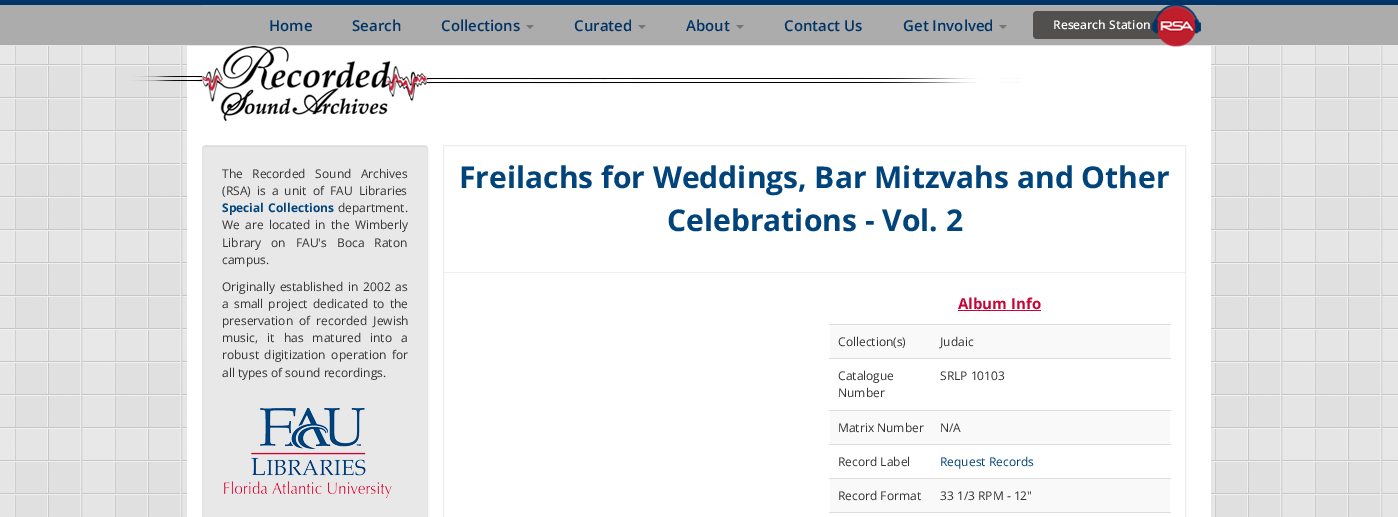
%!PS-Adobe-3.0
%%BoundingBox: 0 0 1398 517
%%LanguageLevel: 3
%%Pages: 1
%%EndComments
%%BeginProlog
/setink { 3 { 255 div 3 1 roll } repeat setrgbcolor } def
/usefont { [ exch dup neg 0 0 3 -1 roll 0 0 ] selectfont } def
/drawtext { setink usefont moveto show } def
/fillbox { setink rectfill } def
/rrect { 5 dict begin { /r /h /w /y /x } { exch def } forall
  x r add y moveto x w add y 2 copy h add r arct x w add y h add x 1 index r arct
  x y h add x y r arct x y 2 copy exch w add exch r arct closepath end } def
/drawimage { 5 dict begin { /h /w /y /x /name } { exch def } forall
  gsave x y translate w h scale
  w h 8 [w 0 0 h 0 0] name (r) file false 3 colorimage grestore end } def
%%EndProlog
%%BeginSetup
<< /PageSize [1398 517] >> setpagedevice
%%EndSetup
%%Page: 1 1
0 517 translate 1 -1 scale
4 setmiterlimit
0 0 1398 517 255 255 255 fillbox
(assets/img1.rgb) 0 46 1398 471 drawimage
0 5 1398 40 172 172 172 fillbox
0 0 1398 5 0 51 102 fillbox
0 45 1398 1 231 231 231 fillbox
202 5 1014 1 180 180 180 fillbox
(Home) 269 31 /OpenSans-SemiBold 15 0 51 102 drawtext
(Search) 352 31 /OpenSans-SemiBold 15 0 51 102 drawtext
(Collections) 441 31 /OpenSans-SemiBold 15 0 51 102 drawtext
119 119 119 setink
526 25 moveto 534 25 lineto 530 29 lineto closepath fill
(Curated) 574 31 /OpenSans-SemiBold 15 0 51 102 drawtext
119 119 119 setink
638 25 moveto 646 25 lineto 642 29 lineto closepath fill
(About) 686 31 /OpenSans-SemiBold 15 0 51 102 drawtext
119 119 119 setink
736 25 moveto 744 25 lineto 740 29 lineto closepath fill
(Contact Us) 784 31 /OpenSans-SemiBold 15 0 51 102 drawtext
(Get Involved) 903 31 /OpenSans-SemiBold 15 0 51 102 drawtext
119 119 119 setink
999 25 moveto 1007 25 lineto 1003 29 lineto closepath fill
81 80 79 setink
1033 11 138 28 4 rrect fill
(Research Station) 1053 29 /OpenSans-SemiBold 12 255 255 255 drawtext
187 46 1024 471 255 255 255 fillbox
(assets/img2.rgb) 1151 5 50 42 drawimage
(assets/img3.rgb) 132 46 889 75 drawimage
232 232 232 setink
202 145 226 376 4 rrect fill
220 220 220 setink
206 147 moveto 424 147 lineto 426 147 427 148 427 150 curveto 427 149 lineto 427 147 426 146 424 146 curveto 206 146 lineto 204 146 203 147 203 149 curveto 203 150 lineto 203 148 204 147 206 147 curveto closepath fill
227 227 227 setink
202.5 145.5 225 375 3.5 rrect stroke
/OpenSans-Regular 12 usefont
51 51 51 setink
222 178 moveto 6.5 0 32 (The Recorded Sound Archives) widthshow
222 195 moveto 3 0 32 (\(RSA\) is a unit of FAU Libraries) widthshow
/OpenSans-Bold 12 usefont
1 68 123 setink
222 212 moveto 1 0 32 (Special Collections) widthshow
(department.) 338 212 /OpenSans-Regular 12 51 51 51 drawtext
222 229 moveto 2.25 0 32 (We are located in the Wimberly) widthshow
222 247 moveto 7 0 32 (Library on FAU's Boca Raton) widthshow
(campus.) 222 264 /OpenSans-Regular 12 51 51 51 drawtext
222 291 moveto 1.5 0 32 (Originally established in 2002 as) widthshow
222 308 moveto 2 0 32 (a small project dedicated to the) widthshow
222 325 moveto 3 0 32 (preservation of recorded Jewish) widthshow
222 342 moveto 6 0 32 (music, it has matured into a) widthshow
222 359 moveto 2.5 0 32 (robust digitization operation for) widthshow
(all types of sound recordings.) 222 377 /OpenSans-Regular 12 51 51 51 drawtext
(assets/img4.rgb) 224 408 168 90 drawimage
238 238 238 setink
443.5 145.5 742 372 rectstroke
(Freilachs for Weddings, Bar Mitzvahs and Other) 459 188 /OpenSans-Bold 30 1 68 123 drawtext
(Celebrations - Vol. 2) 667 231 /OpenSans-Bold 30 1 68 123 drawtext
444 272 741 1 238 238 238 fillbox
(Album Info) 958 309 /OpenSans-Bold 15 198 4 53 drawtext
958 310 83 1 198 4 53 fillbox
830 325 340 33 249 249 249 fillbox
(Collection\(s\)) 838 346 /OpenSans-Regular 12 51 51 51 drawtext
829 324 342 1 221 221 221 fillbox
(Judaic) 940 346 /OpenSans-Regular 12 51 51 51 drawtext
(Catalogue) 838 380 /OpenSans-Regular 12 51 51 51 drawtext
(Number) 838 397 /OpenSans-Regular 12 51 51 51 drawtext
829 358 342 1 221 221 221 fillbox
(SRLP 10103) 940 380 /OpenSans-Regular 12 51 51 51 drawtext
830 411 340 33 249 249 249 fillbox
(Matrix Number) 838 432 /OpenSans-Regular 12 51 51 51 drawtext
829 410 342 1 221 221 221 fillbox
(N/A) 940 432 /OpenSans-Regular 12 51 51 51 drawtext
(Record Label) 838 466 /OpenSans-Regular 12 51 51 51 drawtext
829 444 342 1 221 221 221 fillbox
(Request Records) 940 466 /OpenSans-Regular 12 1 68 123 drawtext
830 479 340 33 249 249 249 fillbox
(Record Format) 838 500 /OpenSans-Regular 12 51 51 51 drawtext
829 478 342 1 221 221 221 fillbox
(33 1/3 RPM - 12") 940 500 /OpenSans-Regular 12 51 51 51 drawtext
829 512 342 1 221 221 221 fillbox
showpage
%%EOF
